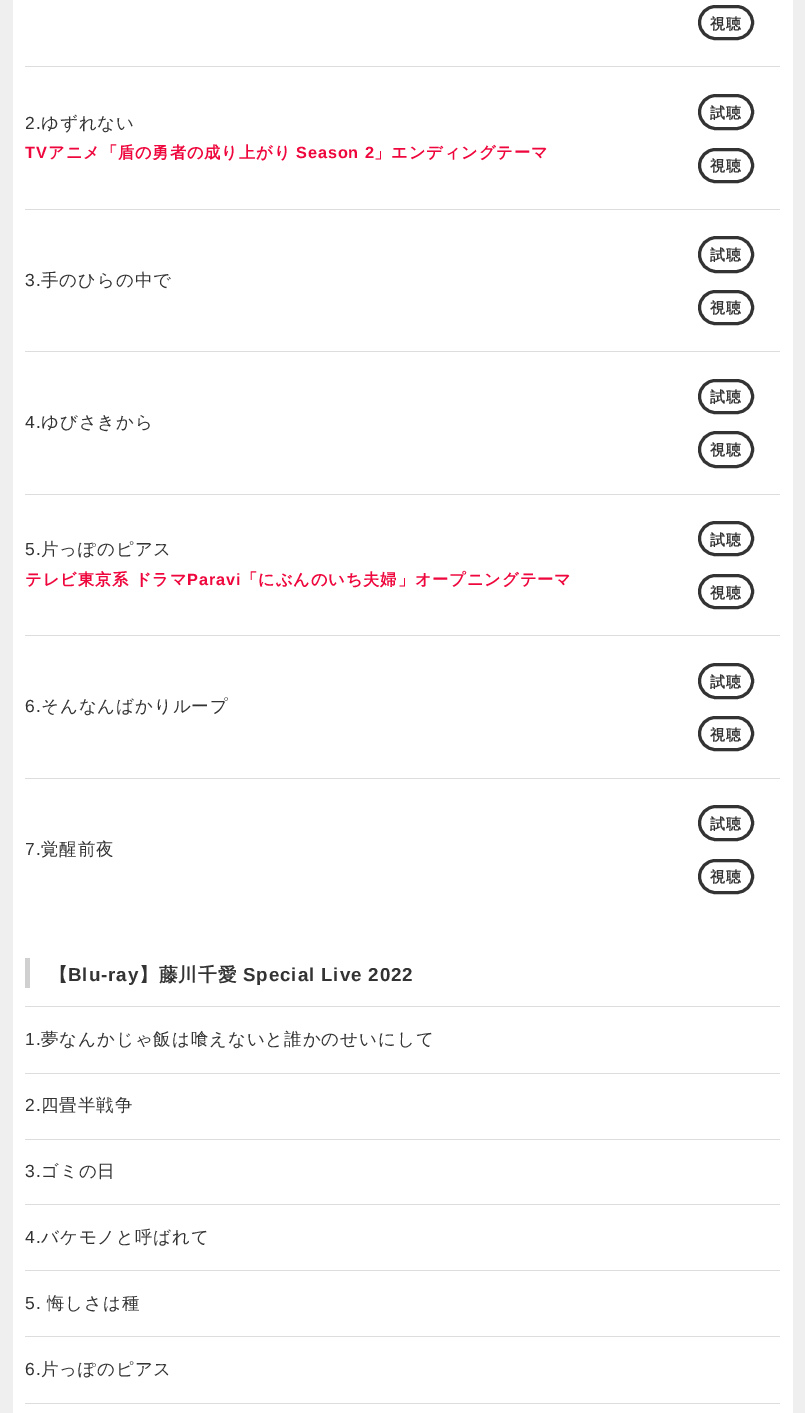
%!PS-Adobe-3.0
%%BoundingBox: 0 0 805 1413
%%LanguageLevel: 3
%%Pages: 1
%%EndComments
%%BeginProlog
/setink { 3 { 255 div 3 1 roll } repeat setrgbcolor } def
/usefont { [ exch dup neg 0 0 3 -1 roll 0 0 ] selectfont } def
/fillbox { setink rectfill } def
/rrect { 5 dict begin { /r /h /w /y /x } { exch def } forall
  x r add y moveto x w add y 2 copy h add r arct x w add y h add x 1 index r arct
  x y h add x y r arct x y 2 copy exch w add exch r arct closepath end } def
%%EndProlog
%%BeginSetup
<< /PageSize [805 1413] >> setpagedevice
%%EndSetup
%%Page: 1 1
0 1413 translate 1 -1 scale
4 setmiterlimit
0 0 805 1413 239 239 239 fillbox
13 0 780 1413 255 255 255 fillbox
51 51 51 setink
3 setlinewidth
699.5 6.5 53 32 16 rrect stroke
/WenQuanYiZenHei-Bold 15 usefont
710 29 moveto 0.9 0 (視聴) ashow
25 66 755 1 221 221 221 fillbox
/LiberationSans-Regular 17.5 usefont
51 51 51 setink
25 129 moveto 0.9 0 (2.) ashow
/WenQuanYiZenHei-Medium 17.5 usefont
41 129 moveto 0.9 0 (ゆずれない) ashow
/LiberationSans-Bold 16.25 usefont
238 6 60 setink
25 158 moveto 0.9 0 (TV) ashow
/WenQuanYiZenHei-Bold 16.25 usefont
48 158 moveto 0.9 0 (アニメ「盾の勇者の成り上がり) ashow
/LiberationSans-Bold 16.25 usefont
296 158 moveto 0.9 0 (Season 2) ashow
/WenQuanYiZenHei-Bold 16.25 usefont
374 158 moveto 0.9 0 (」エンディングテーマ) ashow
51 51 51 setink
699.5 95.5 53 33 16.5 rrect stroke
/WenQuanYiZenHei-Bold 15 usefont
710 118 moveto 0.9 0 (試聴) ashow
699.5 149.5 53 32 16 rrect stroke
710 171 moveto 0.9 0 (視聴) ashow
25 209 755 1 221 221 221 fillbox
/LiberationSans-Regular 17.5 usefont
51 51 51 setink
25 286 moveto 0.9 0 (3.) ashow
/WenQuanYiZenHei-Medium 17.5 usefont
41 286 moveto 0.9 0 (手のひらの中で) ashow
699.5 237.5 53 34 17 rrect stroke
/WenQuanYiZenHei-Bold 15 usefont
710 260 moveto 0.9 0 (試聴) ashow
699.5 291.5 53 32 16 rrect stroke
710 313 moveto 0.9 0 (視聴) ashow
25 351 755 1 221 221 221 fillbox
/LiberationSans-Regular 17.5 usefont
51 51 51 setink
25 428 moveto 0.9 0 (4.) ashow
/WenQuanYiZenHei-Medium 17.5 usefont
41 428 moveto 0.9 0 (ゆびさきから) ashow
699.5 380.5 53 32 16 rrect stroke
/WenQuanYiZenHei-Bold 15 usefont
710 402 moveto 0.9 0 (試聴) ashow
699.5 432.5 53 34 17 rrect stroke
710 455 moveto 0.9 0 (視聴) ashow
25 494 755 1 221 221 221 fillbox
/LiberationSans-Regular 17.5 usefont
51 51 51 setink
25 555 moveto 0.9 0 (5.) ashow
/WenQuanYiZenHei-Medium 17.5 usefont
41 555 moveto 0.9 0 (片っぽのピアス) ashow
/WenQuanYiZenHei-Bold 16.25 usefont
238 6 60 setink
25 585 moveto 0.9 0 (テレビ東京系 ドラマ) ashow
/LiberationSans-Bold 16.25 usefont
187 585 moveto 0.9 0 (Paravi) ashow
/WenQuanYiZenHei-Bold 16.25 usefont
241 585 moveto 0.9 0 (「にぶんのいち夫婦」オープニングテーマ) ashow
51 51 51 setink
699.5 522.5 53 32 16 rrect stroke
/WenQuanYiZenHei-Bold 15 usefont
710 545 moveto 0.9 0 (試聴) ashow
699.5 575.5 53 32 16 rrect stroke
710 598 moveto 0.9 0 (視聴) ashow
25 635 755 1 221 221 221 fillbox
/LiberationSans-Regular 17.5 usefont
51 51 51 setink
25 712 moveto 0.9 0 (6.) ashow
/WenQuanYiZenHei-Medium 17.5 usefont
41 712 moveto 0.9 0 (そんなんばかりループ) ashow
699.5 664.5 53 33 16.5 rrect stroke
/WenQuanYiZenHei-Bold 15 usefont
710 687 moveto 0.9 0 (試聴) ashow
699.5 717.5 53 32 16 rrect stroke
710 740 moveto 0.9 0 (視聴) ashow
25 778 755 1 221 221 221 fillbox
/LiberationSans-Regular 17.5 usefont
51 51 51 setink
25 855 moveto 0.9 0 (7.) ashow
/WenQuanYiZenHei-Medium 17.5 usefont
41 855 moveto 0.9 0 (覚醒前夜) ashow
699.5 806.5 53 33 16.5 rrect stroke
/WenQuanYiZenHei-Bold 15 usefont
710 829 moveto 0.9 0 (試聴) ashow
699.5 860.5 53 32 16 rrect stroke
710 882 moveto 0.9 0 (視聴) ashow
25 958 5 30 208 208 208 fillbox
/WenQuanYiZenHei-Bold 18.75 usefont
51 51 51 setink
49 981 moveto 0.9 0 (【) ashow
/LiberationSans-Bold 18.75 usefont
68 981 moveto 0.9 0 (Blu-ray) ashow
/WenQuanYiZenHei-Bold 18.75 usefont
139 981 moveto 0.9 0 (】藤川千愛) ashow
/LiberationSans-Bold 18.75 usefont
243 981 moveto 0.9 0 (Special Live 2022) ashow
25 1006 755 1 221 221 221 fillbox
/LiberationSans-Regular 17.5 usefont
51 51 51 setink
25 1045 moveto 0.9 0 (1.) ashow
/WenQuanYiZenHei-Medium 17.5 usefont
41 1045 moveto 0.9 0 (夢なんかじゃ飯は喰えないと誰かのせいにして) ashow
25 1073 755 1 221 221 221 fillbox
/LiberationSans-Regular 17.5 usefont
51 51 51 setink
25 1111 moveto 0.9 0 (2.) ashow
/WenQuanYiZenHei-Medium 17.5 usefont
41 1111 moveto 0.9 0 (四畳半戦争) ashow
25 1139 755 1 221 221 221 fillbox
/LiberationSans-Regular 17.5 usefont
51 51 51 setink
25 1177 moveto 0.9 0 (3.) ashow
/WenQuanYiZenHei-Medium 17.5 usefont
41 1177 moveto 0.9 0 (ゴミの日) ashow
25 1204 755 1 221 221 221 fillbox
/LiberationSans-Regular 17.5 usefont
51 51 51 setink
25 1243 moveto 0.9 0 (4.) ashow
/WenQuanYiZenHei-Medium 17.5 usefont
41 1243 moveto 0.9 0 (バケモノと呼ばれて) ashow
25 1270 755 1 221 221 221 fillbox
/LiberationSans-Regular 17.5 usefont
51 51 51 setink
25 1309 moveto 0.9 0 (5.) ashow
/WenQuanYiZenHei-Medium 17.5 usefont
47 1309 moveto 0.9 0 (悔しさは種) ashow
25 1336 755 1 221 221 221 fillbox
/LiberationSans-Regular 17.5 usefont
51 51 51 setink
25 1375 moveto 0.9 0 (6.) ashow
/WenQuanYiZenHei-Medium 17.5 usefont
41 1375 moveto 0.9 0 (片っぽのピアス) ashow
25 1403 755 1 221 221 221 fillbox
showpage
%%EOF
